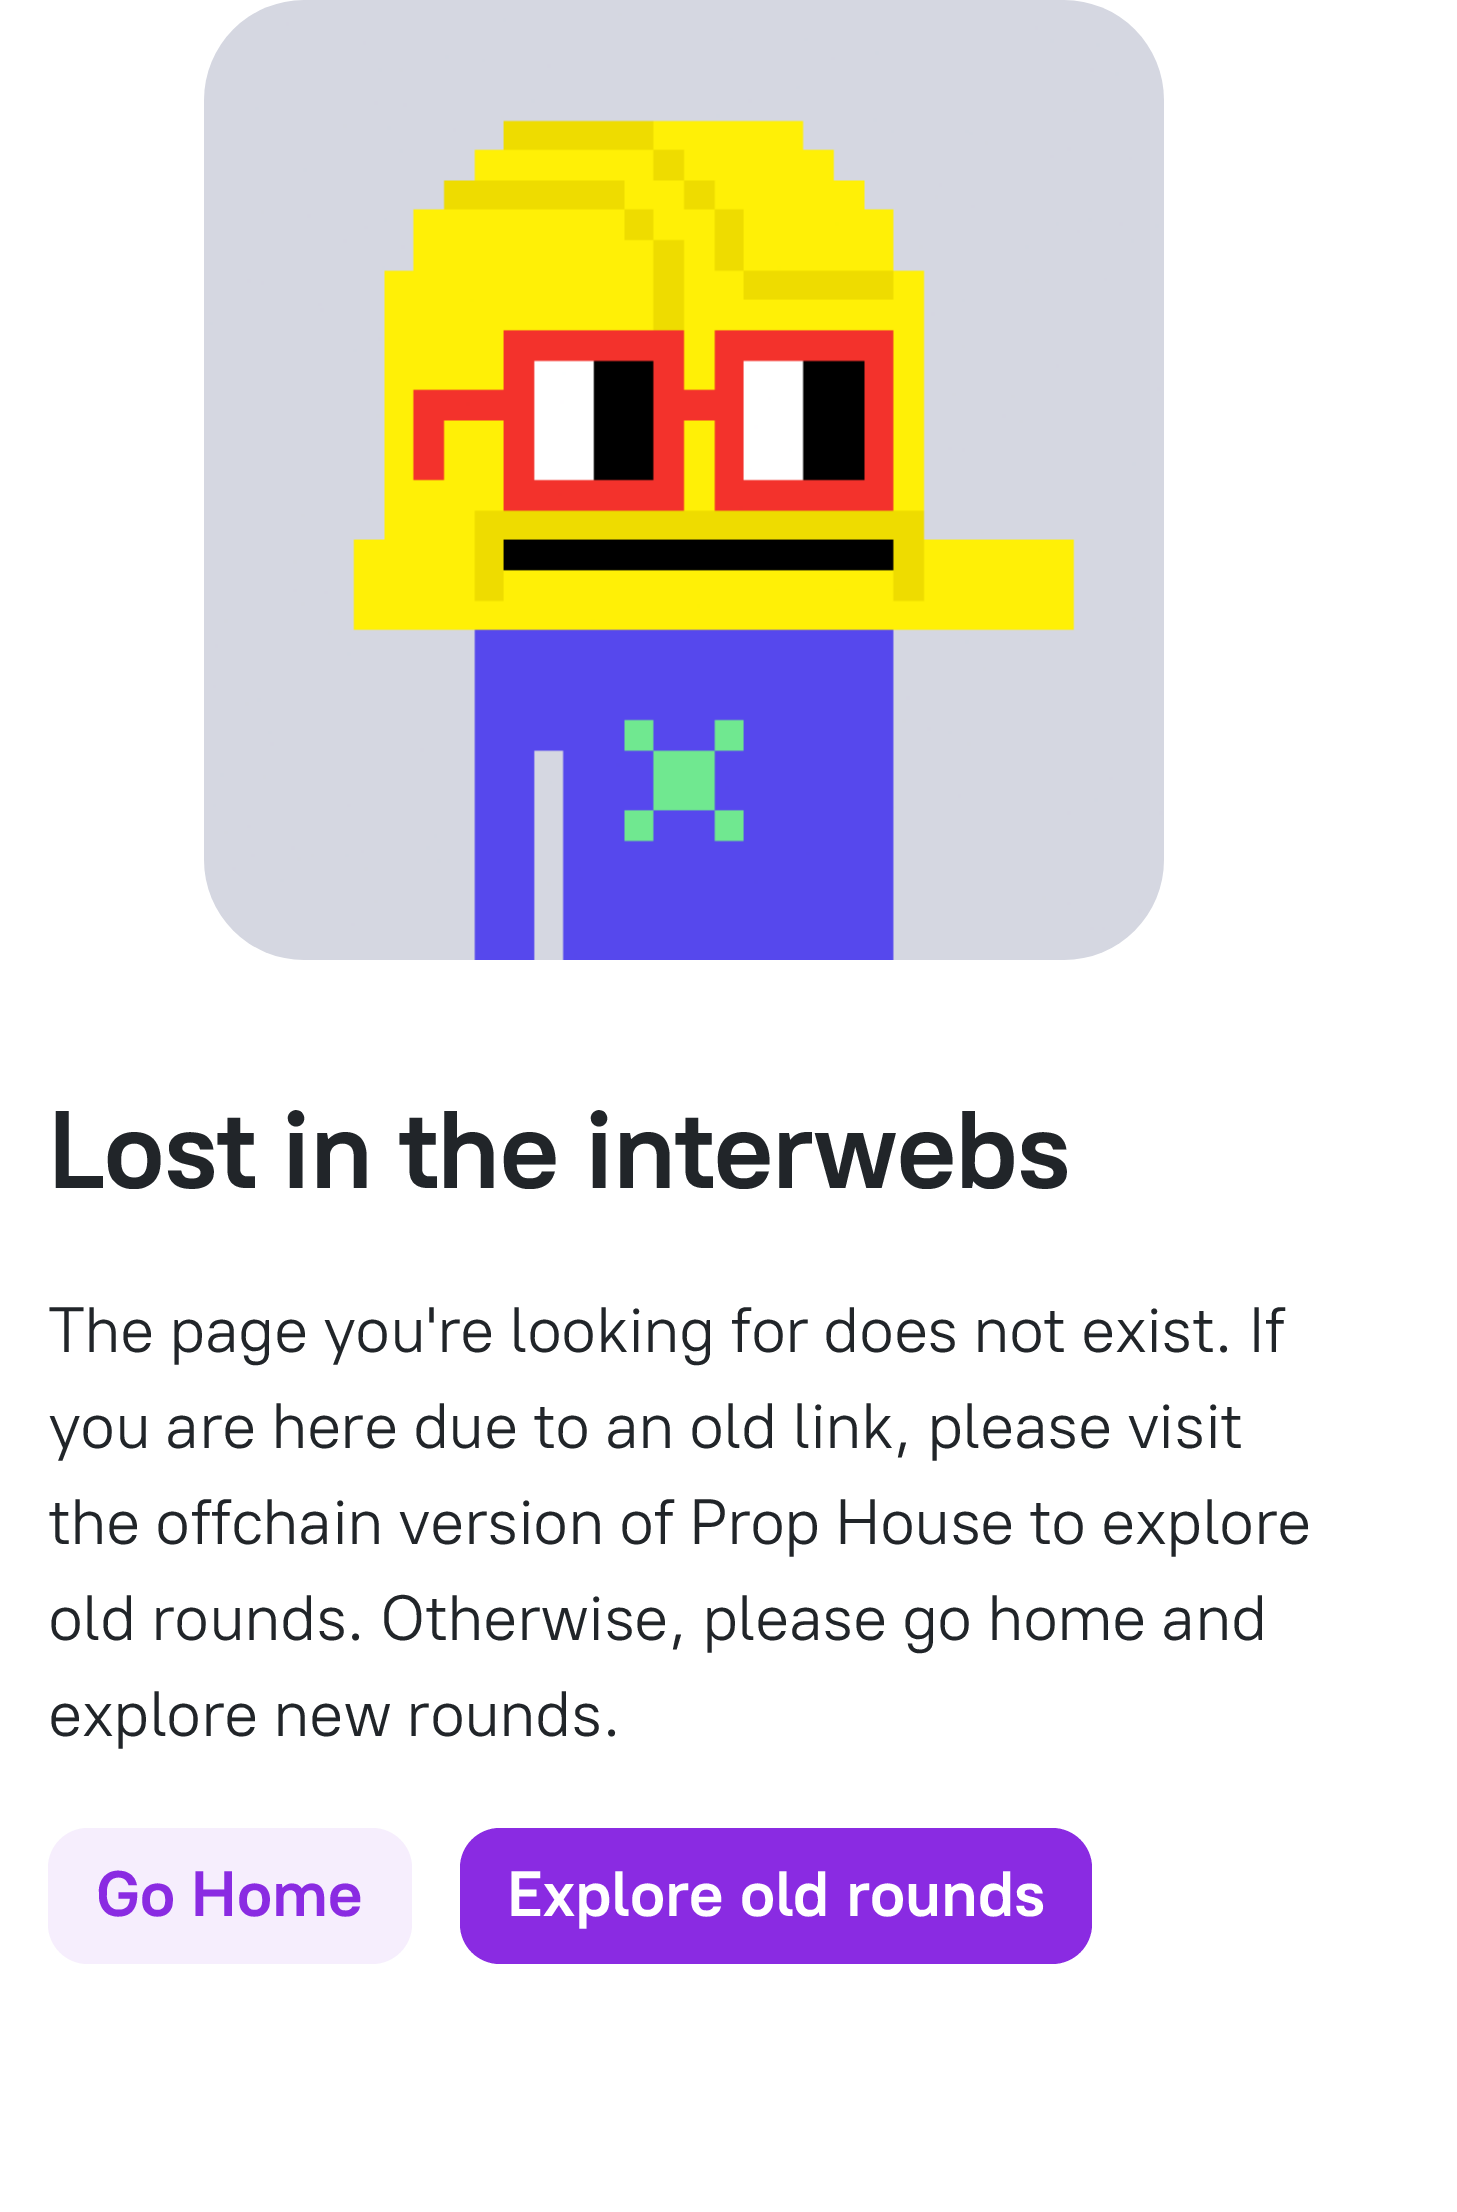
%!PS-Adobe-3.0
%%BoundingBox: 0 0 1457 2212
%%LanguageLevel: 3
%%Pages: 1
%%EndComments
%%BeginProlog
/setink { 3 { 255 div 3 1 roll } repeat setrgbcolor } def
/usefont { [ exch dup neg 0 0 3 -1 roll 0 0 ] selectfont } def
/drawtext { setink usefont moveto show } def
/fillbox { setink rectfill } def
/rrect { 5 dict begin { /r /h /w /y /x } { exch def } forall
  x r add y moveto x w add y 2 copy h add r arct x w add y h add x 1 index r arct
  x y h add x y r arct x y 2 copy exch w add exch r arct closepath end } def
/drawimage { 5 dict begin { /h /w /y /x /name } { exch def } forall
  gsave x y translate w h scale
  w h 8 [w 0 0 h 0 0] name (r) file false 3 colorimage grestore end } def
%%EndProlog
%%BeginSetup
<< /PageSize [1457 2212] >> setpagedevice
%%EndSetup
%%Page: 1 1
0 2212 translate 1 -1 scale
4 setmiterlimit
0 0 1457 2212 255 255 255 fillbox
(assets/img1.rgb) 204 0 960 960 drawimage
/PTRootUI-Bold 110 usefont
33 37 41 setink
48 1188 moveto -0.8 0 (Lost in the interwebs) ashow
/PTRootUI-Regular 64 usefont
48 1352 moveto -0.8 0 (The page you're looking for does not exist. If) ashow
48 1448 moveto -0.8 0 (you are here due to an old link, please visit) ashow
48 1544 moveto -0.8 0 (the offchain version of Prop House to explore) ashow
48 1640 moveto -0.8 0 (old rounds. Otherwise, please go home and) ashow
48 1736 moveto -0.8 0 (explore new rounds.) ashow
246 238 253 setink
48 1828 364 136 40 rrect fill
(Go Home) 96 1916 /PTRootUI-Bold 64 138 43 226 drawtext
460 1828 632 136 40 rrect fill
(Explore old rounds) 507 1916 /PTRootUI-Bold 64 255 255 255 drawtext
showpage
%%EOF
